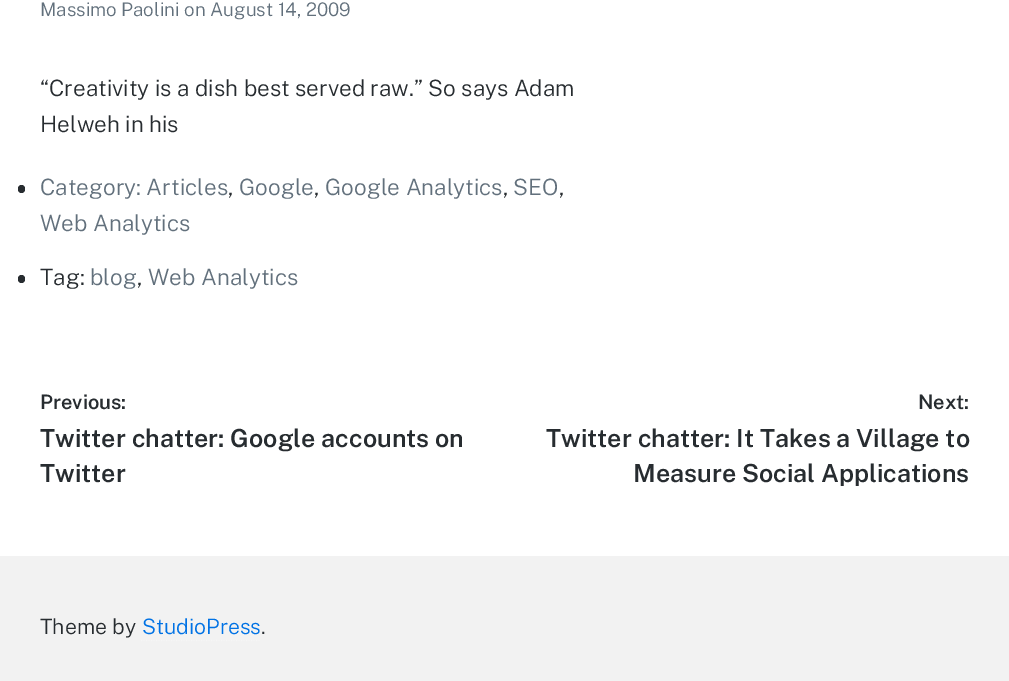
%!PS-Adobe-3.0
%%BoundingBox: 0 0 1009 681
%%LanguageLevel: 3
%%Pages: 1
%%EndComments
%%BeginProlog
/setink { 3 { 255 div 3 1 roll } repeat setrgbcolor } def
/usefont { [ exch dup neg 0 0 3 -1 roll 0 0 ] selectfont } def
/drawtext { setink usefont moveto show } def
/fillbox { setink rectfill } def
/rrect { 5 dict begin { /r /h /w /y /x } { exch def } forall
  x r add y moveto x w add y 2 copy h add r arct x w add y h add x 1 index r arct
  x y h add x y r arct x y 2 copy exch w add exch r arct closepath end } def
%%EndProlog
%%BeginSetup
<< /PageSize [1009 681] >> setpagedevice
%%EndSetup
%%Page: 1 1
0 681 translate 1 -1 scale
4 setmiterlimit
0 0 1009 681 255 255 255 fillbox
(Massimo Paolini on August 14, 2009) 40 16 /PublicSans-Light 18.75 98 112 124 drawtext
(“Creativity is a dish best served raw.” So says Adam) 40 96 /PublicSans-Light 22.5 39 44 48 drawtext
(Helweh in his) 40 132 /PublicSans-Light 22.5 39 44 48 drawtext
18 185 7 8 3.5 rrect fill
(Category: Articles) 40 195 /PublicSans-Light 22.5 98 112 124 drawtext
(Google) 239 195 /PublicSans-Light 22.5 98 112 124 drawtext
(Google Analytics) 325 195 /PublicSans-Light 22.5 98 112 124 drawtext
(SEO) 513 195 /PublicSans-Light 22.5 98 112 124 drawtext
(,) 228 195 /PublicSans-Light 22.5 39 44 48 drawtext
(,) 314 195 /PublicSans-Light 22.5 39 44 48 drawtext
(,) 503 195 /PublicSans-Light 22.5 39 44 48 drawtext
(,) 559 195 /PublicSans-Light 22.5 39 44 48 drawtext
(Web Analytics) 40 231 /PublicSans-Light 22.5 98 112 124 drawtext
39 44 48 setink
18 275 7 8 3.5 rrect fill
(Tag:) 40 285 /PublicSans-Light 22.5 39 44 48 drawtext
(blog) 90 285 /PublicSans-Light 22.5 98 112 124 drawtext
(Web Analytics) 148 285 /PublicSans-Light 22.5 98 112 124 drawtext
(,) 137 285 /PublicSans-Light 22.5 39 44 48 drawtext
(Previous:) 40 409 /PublicSans-SemiBold 20 39 44 48 drawtext
(Twitter chatter: Google accounts on) 40 447 /PublicSans-SemiBold 25 39 44 48 drawtext
(Twitter) 40 482 /PublicSans-SemiBold 25 39 44 48 drawtext
(Next:) 918 409 /PublicSans-SemiBold 20 39 44 48 drawtext
(Twitter chatter: It Takes a Village to) 546 447 /PublicSans-SemiBold 25 39 44 48 drawtext
(Measure Social Applications) 633 482 /PublicSans-SemiBold 25 39 44 48 drawtext
0 556 1009 125 242 242 242 fillbox
(Theme by) 40 634 /PublicSans-Light 21.25 39 44 48 drawtext
(StudioPress) 142 634 /PublicSans-Light 21.25 0 114 229 drawtext
246 246 246 setink
1.2 setlinewidth
[1.25 1.25] 0 setdash
141 640.5 moveto 260 640.5 lineto stroke
(.) 261 634 /PublicSans-Light 21.25 39 44 48 drawtext
showpage
%%EOF
